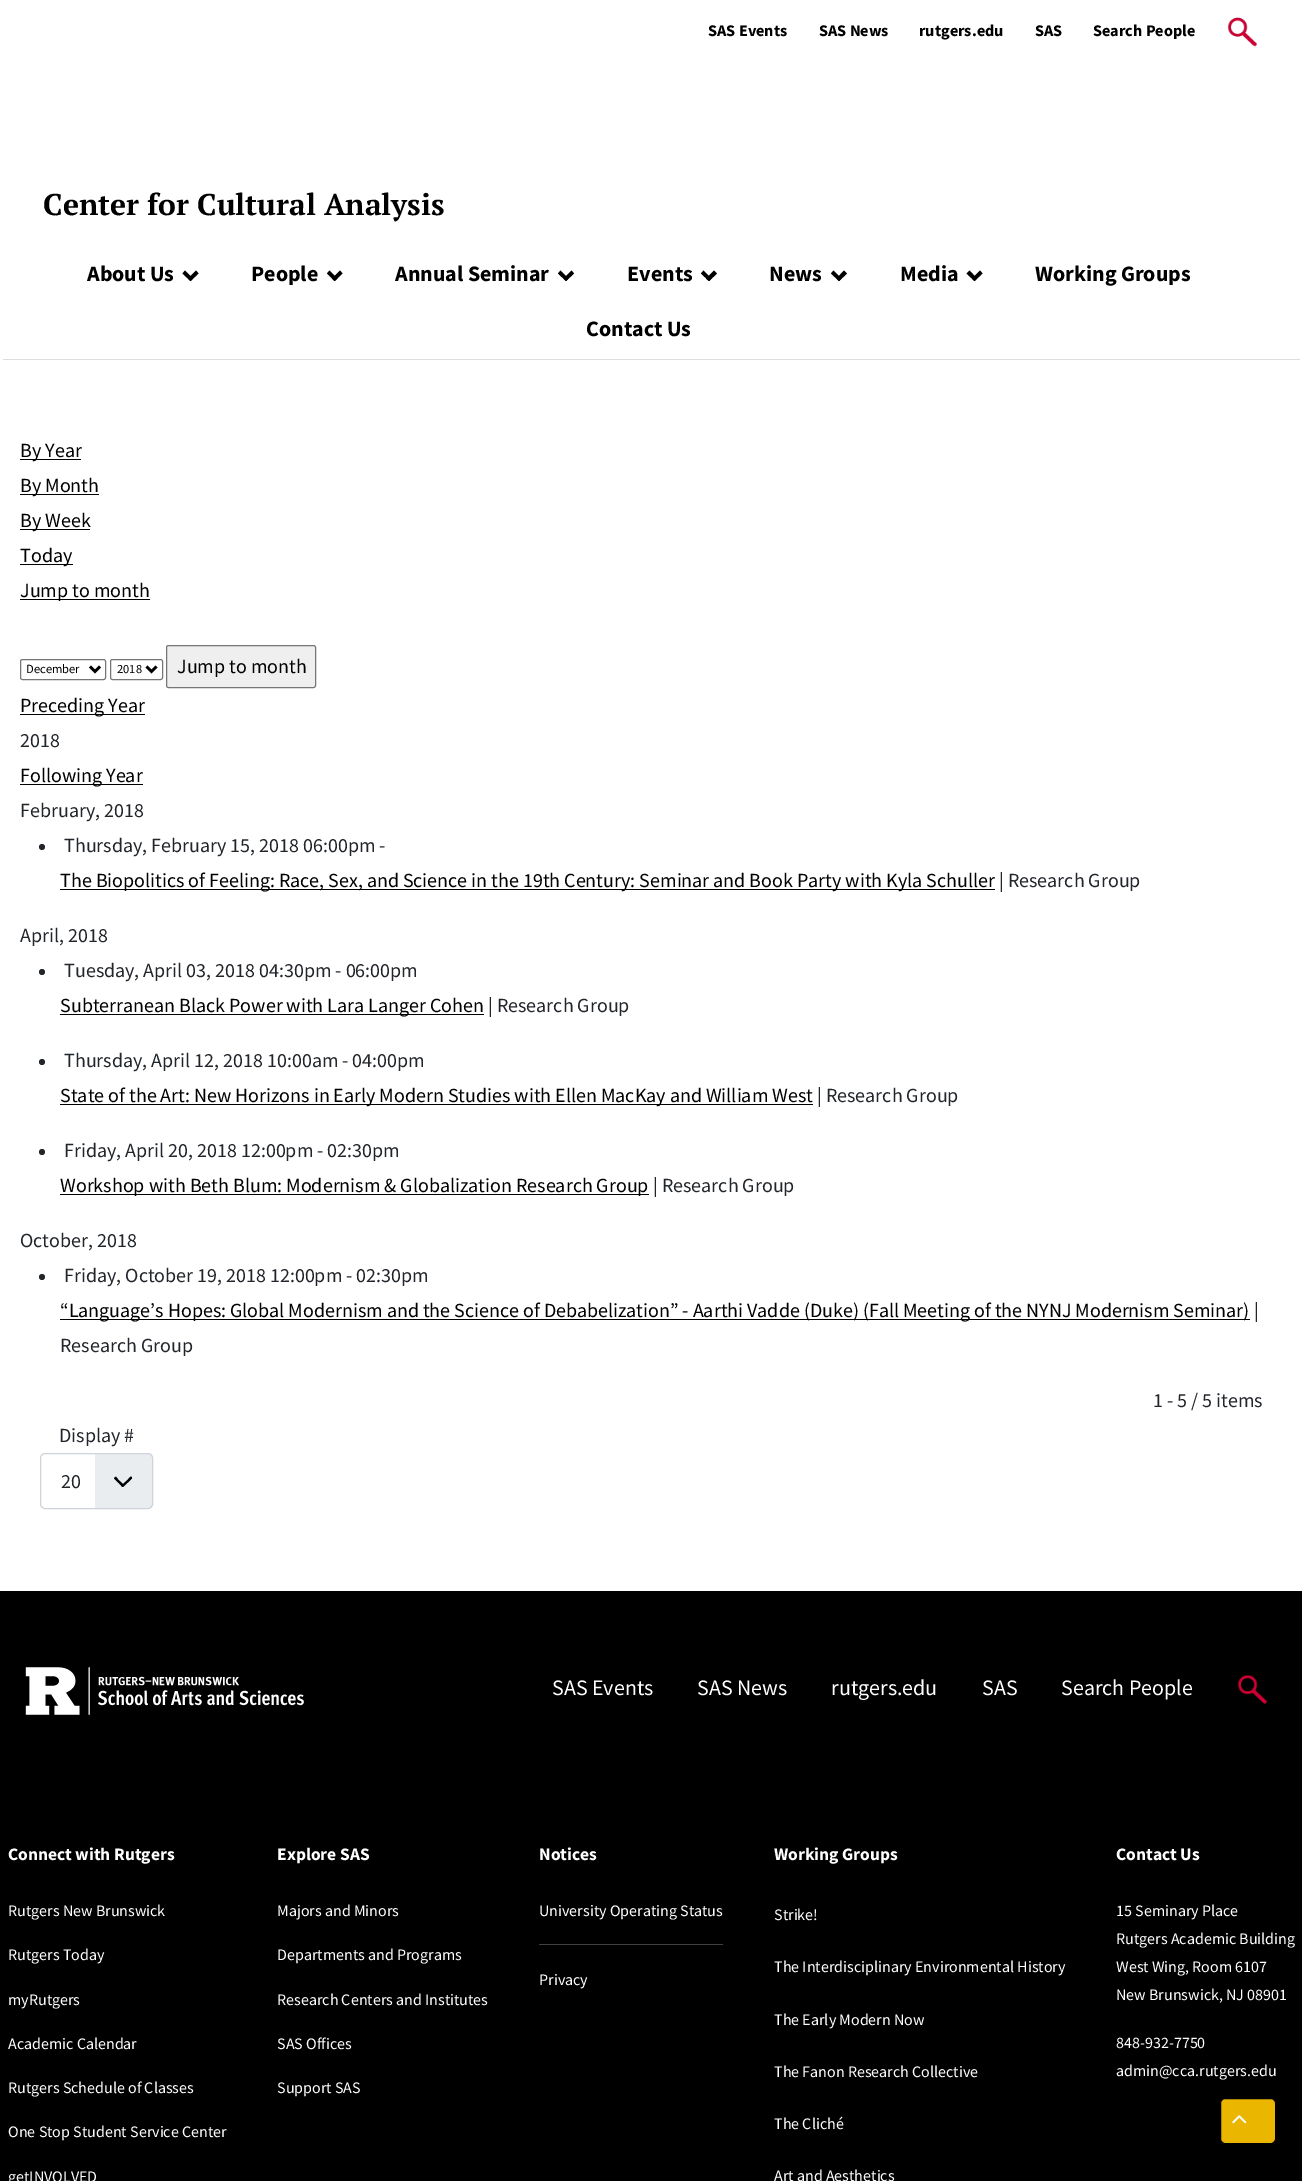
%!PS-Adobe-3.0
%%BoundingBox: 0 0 1302 2181
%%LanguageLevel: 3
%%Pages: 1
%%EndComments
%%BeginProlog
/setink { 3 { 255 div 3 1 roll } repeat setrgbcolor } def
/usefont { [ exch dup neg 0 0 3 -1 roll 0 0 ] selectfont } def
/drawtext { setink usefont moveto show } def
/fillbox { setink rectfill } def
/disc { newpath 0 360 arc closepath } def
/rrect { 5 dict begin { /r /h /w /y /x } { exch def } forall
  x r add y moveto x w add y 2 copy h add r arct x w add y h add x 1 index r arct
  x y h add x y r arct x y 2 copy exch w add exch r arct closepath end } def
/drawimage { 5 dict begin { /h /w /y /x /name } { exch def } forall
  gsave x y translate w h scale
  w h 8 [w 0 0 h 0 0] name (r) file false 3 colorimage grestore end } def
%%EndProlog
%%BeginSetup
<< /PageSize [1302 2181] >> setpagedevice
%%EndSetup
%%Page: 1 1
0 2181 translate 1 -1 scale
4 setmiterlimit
0 0 1302 2181 255 255 255 fillbox
(SAS Events) 708 36 /SourceSansPro-Bold 16.25 0 0 0 drawtext
(SAS News) 819 36 /SourceSansPro-Bold 16.25 0 0 0 drawtext
(rutgers.edu) 919 36 /SourceSansPro-Bold 16.25 0 0 0 drawtext
(SAS) 1035 36 /SourceSansPro-Bold 16.25 0 0 0 drawtext
(Search People) 1093 36 /SourceSansPro-Bold 16.25 0 0 0 drawtext
(assets/img1.rgb) 1227 17 30 30 drawimage
(Center for Cultural Analysis) 43 215 /PTSerif-Bold 30 0 0 0 drawtext
3 359 1297 1 221 221 221 fillbox
(About Us) 87 281 /SourceSansPro-Bold 22 0 0 0 drawtext
196 270.5 moveto 198.5 273.5 lineto 190.5 281 lineto 188 278.5 lineto closepath fill
185 270.5 moveto 193 278.5 lineto 190.5 281 lineto 182.5 273.5 lineto closepath fill
(People) 251 281 /SourceSansPro-Bold 22 0 0 0 drawtext
340 270.5 moveto 342.5 273.5 lineto 334.5 281 lineto 332 278.5 lineto closepath fill
329.5 270.5 moveto 337.5 278.5 lineto 334.5 281 lineto 327 273.5 lineto closepath fill
(Annual Seminar) 395 281 /SourceSansPro-Bold 22 0 0 0 drawtext
571.5 270.5 moveto 574 273.5 lineto 566 281 lineto 563.5 278.5 lineto closepath fill
560.5 270.5 moveto 568.5 278.5 lineto 566 281 lineto 558 273.5 lineto closepath fill
(Events) 627 281 /SourceSansPro-Bold 22 0 0 0 drawtext
714 270.5 moveto 717 273.5 lineto 709 281 lineto 706 278.5 lineto closepath fill
703.5 270.5 moveto 711.5 278.5 lineto 709 281 lineto 701 273.5 lineto closepath fill
(News) 769 281 /SourceSansPro-Bold 22 0 0 0 drawtext
844 270.5 moveto 847 273.5 lineto 839 281 lineto 836.5 278.5 lineto closepath fill
833.5 270.5 moveto 841.5 278.5 lineto 839 281 lineto 831 273.5 lineto closepath fill
(Media) 900 281 /SourceSansPro-Bold 22 0 0 0 drawtext
980 270.5 moveto 982.5 273.5 lineto 974.5 281 lineto 972 278.5 lineto closepath fill
969.5 270.5 moveto 977 278.5 lineto 974.5 281 lineto 966.5 273.5 lineto closepath fill
(Working Groups) 1035 281 /SourceSansPro-Bold 22 0 0 0 drawtext
(Contact Us) 586 336 /SourceSansPro-Bold 22 0 0 0 drawtext
20 459 61 1 0 0 0 fillbox
(By Year) 20 457 /SourceSansPro-Regular 20 0 0 0 drawtext
20 494 79 1 0 0 0 fillbox
(By Month) 20 492 /SourceSansPro-Regular 20 0 0 0 drawtext
20 529 70 1 0 0 0 fillbox
(By Week) 20 527 /SourceSansPro-Regular 20 0 0 0 drawtext
20 564 53 1 0 0 0 fillbox
(Today) 20 562 /SourceSansPro-Regular 20 0 0 0 drawtext
20 599 130 1 0 0 0 fillbox
(Jump to month) 20 597 /SourceSansPro-Regular 20 0 0 0 drawtext
118 118 118 setink
20.5 659.5 85 20 2 rrect stroke
0 0 0 setink
2.5 setlinewidth
90 666.5 moveto 95 671.5 lineto 100 666.5 lineto stroke
(December) 26 673 /SourceSansPro-Regular 12.5 0 0 0 drawtext
118 118 118 setink
1 setlinewidth
110.5 659.5 52 20 2 rrect stroke
0 0 0 setink
2.5 setlinewidth
146.5 666.5 moveto 151.5 671.5 lineto 156.5 666.5 lineto stroke
(2018) 117 673 /SourceSansPro-Regular 12.5 0 0 0 drawtext
239 239 239 setink
166.5 645.5 149 42 2 rrect gsave fill grestore
118 118 118 setink
1 setlinewidth
stroke
(Jump to month) 177 673 /SourceSansPro-Regular 20 0 0 0 drawtext
20 714 125 1 0 0 0 fillbox
(Preceding Year) 20 712 /SourceSansPro-Regular 20 0 0 0 drawtext
(2018) 20 747 /SourceSansPro-Regular 20 34 38 42 drawtext
20 784 123 1 0 0 0 fillbox
(Following Year) 20 782 /SourceSansPro-Regular 20 0 0 0 drawtext
(February, 2018) 20 817 /SourceSansPro-Regular 20 34 38 42 drawtext
42 847 3 disc fill
(Thursday, February 15, 2018 06:00pm -) 64 852 /SourceSansPro-Regular 20 34 38 42 drawtext
60 889 935 1 0 0 0 fillbox
(The Biopolitics of Feeling: Race, Sex, and Science in the 19th Century: Seminar and Book Party with Kyla Schuller) 60 887 /SourceSansPro-Regular 20 0 0 0 drawtext
(| Research Group) 999 887 /SourceSansPro-Regular 20 34 38 42 drawtext
(April, 2018) 20 942 /SourceSansPro-Regular 20 34 38 42 drawtext
42 972 3 disc fill
(Tuesday, April 03, 2018 04:30pm - 06:00pm) 64 977 /SourceSansPro-Regular 20 34 38 42 drawtext
60 1014 424 1 0 0 0 fillbox
(Subterranean Black Power with Lara Langer Cohen) 60 1012 /SourceSansPro-Regular 20 0 0 0 drawtext
(| Research Group) 488 1012 /SourceSansPro-Regular 20 34 38 42 drawtext
42 1062 3 disc fill
(Thursday, April 12, 2018 10:00am - 04:00pm) 64 1067 /SourceSansPro-Regular 20 34 38 42 drawtext
60 1104 753 1 0 0 0 fillbox
(State of the Art: New Horizons in Early Modern Studies with Ellen MacKay and William West) 60 1102 /SourceSansPro-Regular 20 0 0 0 drawtext
(| Research Group) 817 1102 /SourceSansPro-Regular 20 34 38 42 drawtext
42 1152 3 disc fill
(Friday, April 20, 2018 12:00pm - 02:30pm) 64 1157 /SourceSansPro-Regular 20 34 38 42 drawtext
60 1194 589 1 0 0 0 fillbox
(Workshop with Beth Blum: Modernism & Globalization Research Group) 60 1192 /SourceSansPro-Regular 20 0 0 0 drawtext
(| Research Group) 653 1192 /SourceSansPro-Regular 20 34 38 42 drawtext
(October, 2018) 20 1247 /SourceSansPro-Regular 20 34 38 42 drawtext
42 1277 3 disc fill
(Friday, October 19, 2018 12:00pm - 02:30pm) 64 1282 /SourceSansPro-Regular 20 34 38 42 drawtext
60 1319 1190 1 0 0 0 fillbox
(“Language’s Hopes: Global Modernism and the Science of Debabelization” - Aarthi Vadde \(Duke\) \(Fall Meeting of the NYNJ Modernism Seminar\)) 60 1317 /SourceSansPro-Regular 20 0 0 0 drawtext
(|) 1254 1317 /SourceSansPro-Regular 20 34 38 42 drawtext
(Research Group) 60 1352 /SourceSansPro-Regular 20 34 38 42 drawtext
(1 - 5 / 5 items) 1153 1407 /SourceSansPro-Regular 20 34 38 42 drawtext
(Display #) 59 1442 /SourceSansPro-Regular 20 34 38 42 drawtext
234 237 240 setink
40 1453 113 56 5 rrect fill
0 0 0 setink
114 1478.5 moveto 121 1485.5 lineto 123 1487.5 122.5 1487.5 124.5 1485.5 curveto 130.5 1480 lineto 130.5 1479.5 132 1479 132 1478 curveto 131.5 1474.5 128 1479 128 1479.5 curveto 123 1484 lineto 118 1479.5 lineto 118 1479 116 1476 115 1477 curveto closepath fill
255 255 255 setink
45 1453 moveto 95 1453 lineto 95 1509 lineto 45 1509 lineto 42 1509 40 1507 40 1504 curveto 40 1458 lineto 40 1455 42 1453 45 1453 curveto closepath fill
206 212 218 setink
40.5 1453.5 112 55 4.5 rrect stroke
(20) 61 1488 /SourceSansPro-Regular 20 34 38 42 drawtext
0 1591 1302 590 0 0 0 fillbox
(assets/img2.rgb) 25 1667 279 48 drawimage
(SAS Events) 552 1695 /SourceSansPro-Regular 22 255 255 255 drawtext
(SAS News) 697 1695 /SourceSansPro-Regular 22 255 255 255 drawtext
(rutgers.edu) 831 1695 /SourceSansPro-Regular 22 255 255 255 drawtext
(SAS) 982 1695 /SourceSansPro-Regular 22 255 255 255 drawtext
(Search People) 1061 1695 /SourceSansPro-Regular 22 255 255 255 drawtext
(assets/img3.rgb) 1238 1675 29 29 drawimage
(Connect with Rutgers) 8 1860 /SourceSansPro-Bold 17.5 255 255 255 drawtext
(Rutgers New Brunswick) 8 1916 /SourceSansPro-Regular 16 255 255 255 drawtext
(Rutgers Today) 8 1960 /SourceSansPro-Regular 16 255 255 255 drawtext
(myRutgers) 8 2005 /SourceSansPro-Regular 16 255 255 255 drawtext
(Academic Calendar) 8 2049 /SourceSansPro-Regular 16 255 255 255 drawtext
(Rutgers Schedule of Classes) 8 2093 /SourceSansPro-Regular 16 255 255 255 drawtext
(One Stop Student Service Center) 8 2137 /SourceSansPro-Regular 16 255 255 255 drawtext
(getINVOLVED) 8 2182 /SourceSansPro-Regular 16 255 255 255 drawtext
(Explore SAS) 277 1860 /SourceSansPro-Bold 17.5 255 255 255 drawtext
(Majors and Minors) 277 1916 /SourceSansPro-Regular 16 255 255 255 drawtext
(Departments and Programs) 277 1960 /SourceSansPro-Regular 16 255 255 255 drawtext
(Research Centers and Institutes) 277 2005 /SourceSansPro-Regular 16 255 255 255 drawtext
(SAS Offices) 277 2049 /SourceSansPro-Regular 16 255 255 255 drawtext
(Support SAS) 277 2093 /SourceSansPro-Regular 16 255 255 255 drawtext
(Notices) 539 1860 /SourceSansPro-Bold 17.5 255 255 255 drawtext
(University Operating Status) 539 1916 /SourceSansPro-Regular 16 255 255 255 drawtext
539 1944 184 1 64 64 64 fillbox
(Privacy) 539 1985 /SourceSansPro-Regular 16 255 255 255 drawtext
(Working Groups) 774 1860 /SourceSansPro-Bold 17.5 255 255 255 drawtext
(Strike!) 774 1920 /SourceSansPro-Regular 16 255 255 255 drawtext
(The Interdisciplinary Environmental History) 774 1972 /SourceSansPro-Regular 16 255 255 255 drawtext
(The Early Modern Now) 774 2025 /SourceSansPro-Regular 16 255 255 255 drawtext
(The Fanon Research Collective) 774 2077 /SourceSansPro-Regular 16 255 255 255 drawtext
(The Cliché) 774 2129 /SourceSansPro-Regular 16 255 255 255 drawtext
(Art and Aesthetics) 774 2181 /SourceSansPro-Regular 16 255 255 255 drawtext
(Contact Us) 1116 1860 /SourceSansPro-Bold 17.5 255 255 255 drawtext
(15 Seminary Place) 1116 1916 /SourceSansPro-Regular 16 255 255 255 drawtext
(Rutgers Academic Building) 1116 1944 /SourceSansPro-Regular 16 255 255 255 drawtext
(West Wing, Room 6107) 1116 1972 /SourceSansPro-Regular 16 255 255 255 drawtext
(New Brunswick, NJ 08901) 1116 2000 /SourceSansPro-Regular 16 255 255 255 drawtext
(848-932-7750) 1116 2048 /SourceSansPro-Regular 16 255 255 255 drawtext
(admin@cca.rutgers.edu) 1116 2076 /SourceSansPro-Regular 16 255 255 255 drawtext
235 182 0 setink
1220.5 2098.5 55 45 4.5 rrect gsave fill grestore
0 0 0 setink
stroke
(assets/img4.rgb) 1232 2115 15 9 drawimage
showpage
%%EOF
